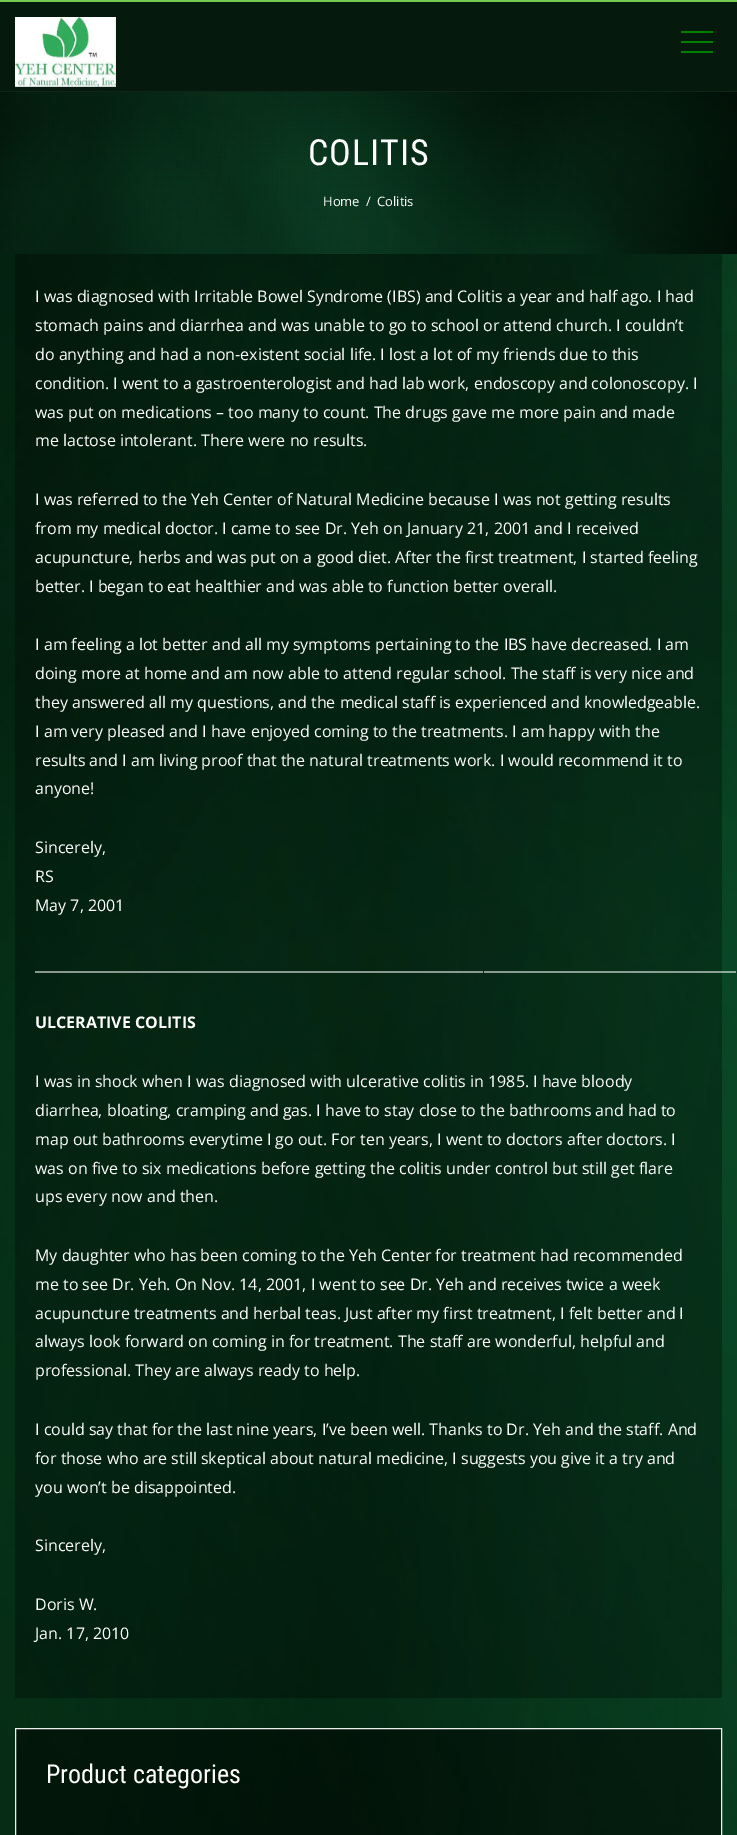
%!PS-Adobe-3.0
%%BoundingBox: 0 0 737 1835
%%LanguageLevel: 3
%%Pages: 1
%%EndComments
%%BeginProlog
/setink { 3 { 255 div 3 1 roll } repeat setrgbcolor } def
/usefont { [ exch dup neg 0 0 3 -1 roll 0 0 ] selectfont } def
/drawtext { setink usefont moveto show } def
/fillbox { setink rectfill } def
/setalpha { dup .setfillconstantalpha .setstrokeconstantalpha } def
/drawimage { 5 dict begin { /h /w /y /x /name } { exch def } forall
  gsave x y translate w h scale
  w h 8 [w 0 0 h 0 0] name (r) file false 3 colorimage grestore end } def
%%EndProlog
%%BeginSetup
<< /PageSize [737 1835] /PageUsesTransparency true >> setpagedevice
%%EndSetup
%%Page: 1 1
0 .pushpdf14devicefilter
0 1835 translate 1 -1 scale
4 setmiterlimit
0 0 737 1835 255 255 255 fillbox
(assets/img1.rgb) 0 254 737 1581 drawimage
0 2 737 89 5 26 13 fillbox
0 0 737 2 114 204 80 fillbox
0 91 737 1 18 37 25 fillbox
(assets/img2.rgb) 15 17 101 70 drawimage
681 31 32 2 0 128 0 fillbox
681 51 32 2 0 128 0 fillbox
681 41 32 2 0 128 0 fillbox
(assets/img3.rgb) 0 92 737 162 drawimage
(assets/img4.rgb) 0 92 737 162 drawimage
/RobotoCondensed-Regular 36 usefont
255 255 255 setink
308 165 moveto 1 0 (COLITIS) ashow
(Home) 323 206 /OpenSans-Regular 13 255 255 255 drawtext
(/) 366 206 /OpenSans-Regular 13 255 255 255 drawtext
(Colitis) 377 206 /OpenSans-Regular 13 255 255 255 drawtext
0.3 setalpha
15 254 707 1444 0 0 0 fillbox
1 setalpha
(I was diagnosed with Irritable Bowel Syndrome \(IBS\) and Colitis a year and half ago. I had) 35 302 /OpenSans-Regular 16 255 255 255 drawtext
(stomach pains and diarrhea and was unable to go to school or attend church. I couldn’t) 35 331 /OpenSans-Regular 16 255 255 255 drawtext
(do anything and had a non-existent social life. I lost a lot of my friends due to this) 35 360 /OpenSans-Regular 16 255 255 255 drawtext
(condition. I went to a gastroenterologist and had lab work, endoscopy and colonoscopy. I) 35 389 /OpenSans-Regular 16 255 255 255 drawtext
(was put on medications – too many to count. The drugs gave me more pain and made) 35 418 /OpenSans-Regular 16 255 255 255 drawtext
(me lactose intolerant. There were no results.) 35 446 /OpenSans-Regular 16 255 255 255 drawtext
(I was referred to the Yeh Center of Natural Medicine because I was not getting results) 35 505 /OpenSans-Regular 16 255 255 255 drawtext
(from my medical doctor. I came to see Dr. Yeh on January 21, 2001 and I received) 35 534 /OpenSans-Regular 16 255 255 255 drawtext
(acupuncture, herbs and was put on a good diet. After the first treatment, I started feeling) 35 563 /OpenSans-Regular 16 255 255 255 drawtext
(better. I began to eat healthier and was able to function better overall.) 35 592 /OpenSans-Regular 16 255 255 255 drawtext
(I am feeling a lot better and all my symptoms pertaining to the IBS have decreased. I am) 35 650 /OpenSans-Regular 16 255 255 255 drawtext
(doing more at home and am now able to attend regular school. The staff is very nice and) 35 679 /OpenSans-Regular 16 255 255 255 drawtext
(they answered all my questions, and the medical staff is experienced and knowledgeable.) 35 708 /OpenSans-Regular 16 255 255 255 drawtext
(I am very pleased and I have enjoyed coming to the treatments. I am happy with the) 35 737 /OpenSans-Regular 16 255 255 255 drawtext
(results and I am living proof that the natural treatments work. I would recommend it to) 35 766 /OpenSans-Regular 16 255 255 255 drawtext
(anyone!) 35 794 /OpenSans-Regular 16 255 255 255 drawtext
(Sincerely,) 35 853 /OpenSans-Regular 16 255 255 255 drawtext
(RS) 35 882 /OpenSans-Regular 16 255 255 255 drawtext
(May 7, 2001) 35 911 /OpenSans-Regular 16 255 255 255 drawtext
(____________________________________________________________________________________________________) 35 970 /OpenSans-Regular 16 255 255 255 drawtext
(ULCERATIVE COLITIS) 35 1028 /OpenSans-Bold 16 255 255 255 drawtext
(I was in shock when I was diagnosed with ulcerative colitis in 1985. I have bloody) 35 1087 /OpenSans-Regular 16 255 255 255 drawtext
(diarrhea, bloating, cramping and gas. I have to stay close to the bathrooms and had to) 35 1116 /OpenSans-Regular 16 255 255 255 drawtext
(map out bathrooms everytime I go out. For ten years, I went to doctors after doctors. I) 35 1145 /OpenSans-Regular 16 255 255 255 drawtext
(was on five to six medications before getting the colitis under control but still get flare) 35 1174 /OpenSans-Regular 16 255 255 255 drawtext
(ups every now and then.) 35 1202 /OpenSans-Regular 16 255 255 255 drawtext
(My daughter who has been coming to the Yeh Center for treatment had recommended) 35 1261 /OpenSans-Regular 16 255 255 255 drawtext
(me to see Dr. Yeh. On Nov. 14, 2001, I went to see Dr. Yeh and receives twice a week) 35 1290 /OpenSans-Regular 16 255 255 255 drawtext
(acupuncture treatments and herbal teas. Just after my first treatment, I felt better and I) 35 1319 /OpenSans-Regular 16 255 255 255 drawtext
(always look forward on coming in for treatment. The staff are wonderful, helpful and) 35 1347 /OpenSans-Regular 16 255 255 255 drawtext
(professional. They are always ready to help.) 35 1376 /OpenSans-Regular 16 255 255 255 drawtext
(I could say that for the last nine years, I’ve been well. Thanks to Dr. Yeh and the staff. And) 35 1435 /OpenSans-Regular 16 255 255 255 drawtext
(for those who are still skeptical about natural medicine, I suggests you give it a try and) 35 1464 /OpenSans-Regular 16 255 255 255 drawtext
(you won’t be disappointed.) 35 1493 /OpenSans-Regular 16 255 255 255 drawtext
(Sincerely,) 35 1551 /OpenSans-Regular 16 255 255 255 drawtext
(Doris W.) 35 1610 /OpenSans-Regular 16 255 255 255 drawtext
(Jan. 17, 2010) 35 1639 /OpenSans-Regular 16 255 255 255 drawtext
0.5 setalpha
0 0 0 setink
15.5 1728.5 moveto 721.5 1728.5 lineto 721.5 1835.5 lineto 15.5 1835.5 lineto closepath fill
1 setalpha
238 238 238 setink
15.5 1728.5 moveto 721.5 1728.5 lineto 721.5 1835.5 lineto 15.5 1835.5 lineto closepath stroke
(Product categories) 46 1783 /RobotoCondensed-Regular 26 255 255 255 drawtext
.poppdf14devicefilter showpage
%%EOF
